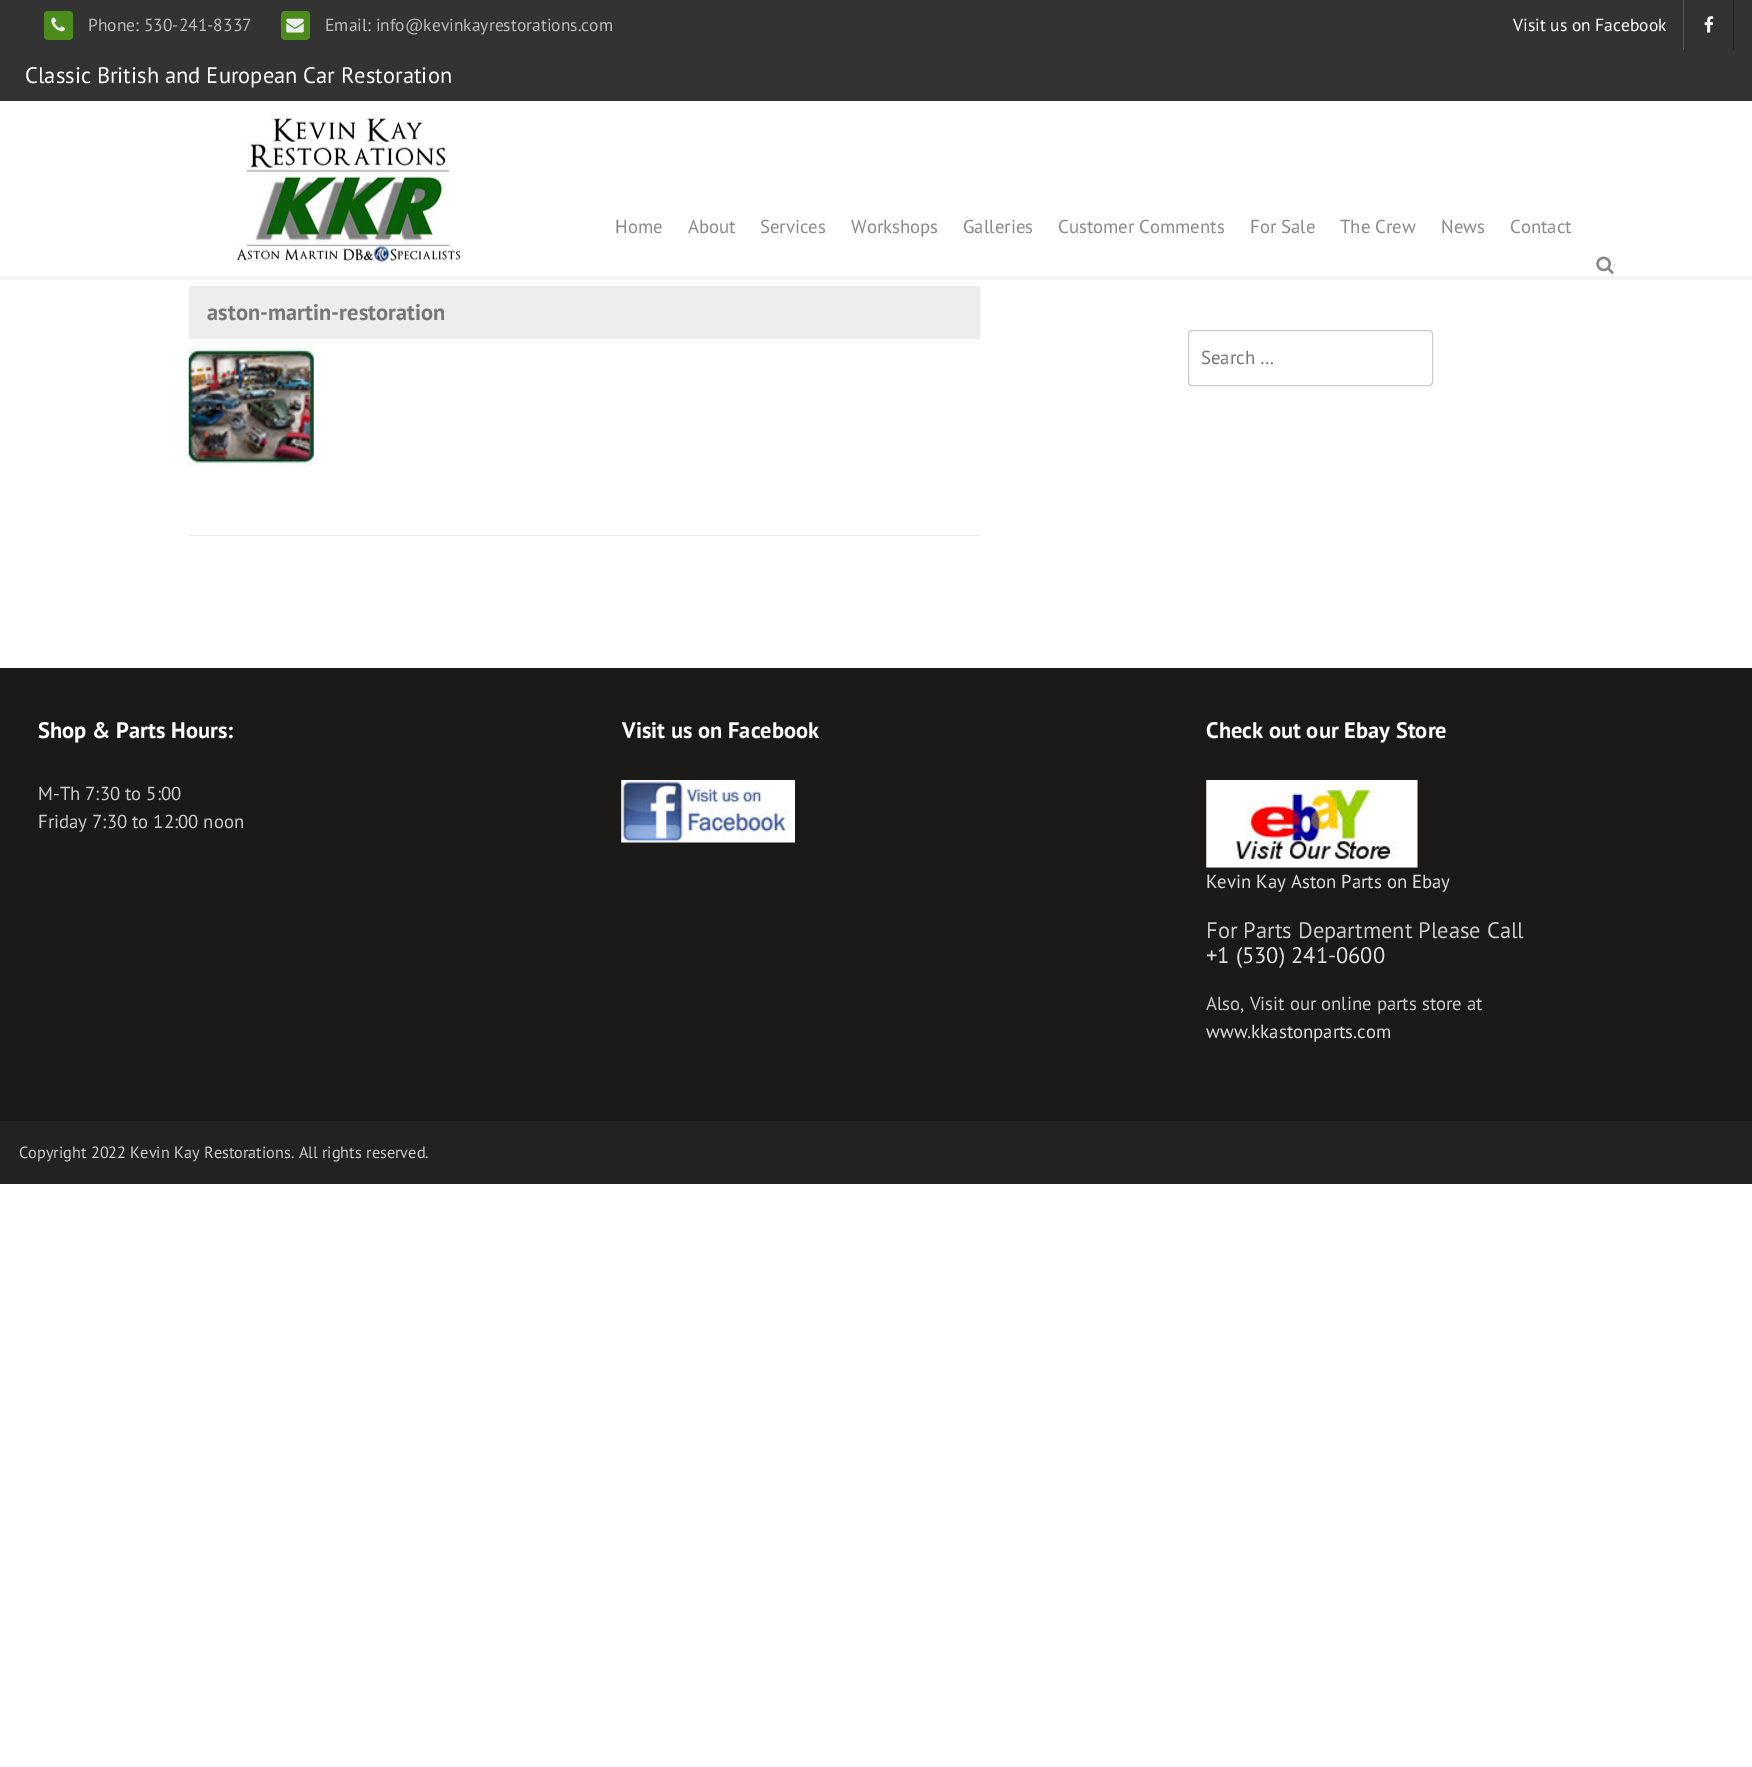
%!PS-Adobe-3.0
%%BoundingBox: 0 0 1752 1767
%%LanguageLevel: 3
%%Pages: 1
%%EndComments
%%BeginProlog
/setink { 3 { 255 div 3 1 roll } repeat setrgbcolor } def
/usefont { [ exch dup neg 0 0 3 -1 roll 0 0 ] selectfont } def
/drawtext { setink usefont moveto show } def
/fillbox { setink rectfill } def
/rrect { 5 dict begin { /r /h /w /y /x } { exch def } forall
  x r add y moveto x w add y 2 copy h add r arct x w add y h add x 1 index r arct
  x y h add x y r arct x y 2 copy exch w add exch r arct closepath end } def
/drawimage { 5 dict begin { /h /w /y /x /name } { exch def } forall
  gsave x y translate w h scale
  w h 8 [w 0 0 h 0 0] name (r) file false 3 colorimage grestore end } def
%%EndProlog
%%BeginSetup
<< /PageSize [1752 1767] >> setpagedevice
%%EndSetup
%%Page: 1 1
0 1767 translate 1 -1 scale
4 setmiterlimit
0 0 1752 1767 255 255 255 fillbox
0 276 1752 4 245 245 245 fillbox
0 0 1752 101 51 51 51 fillbox
75 140 29 setink
44 11 29 29 4 rrect fill
(assets/img1.rgb) 51 17 14 15 drawimage
(Phone: 530-241-8337) 88 31 /PTSans-Regular 17.5 187 187 187 drawtext
75 140 29 setink
281 11 29 29 4 rrect fill
(assets/img2.rgb) 286 18 18 15 drawimage
(Email: info@kevinkayrestorations.com) 325 31 /PTSans-Regular 17.5 187 187 187 drawtext
(Classic British and European Car Restoration) 25 83 /PTSans-Regular 22.5 255 255 255 drawtext
1733 0 1 50 34 34 34 fillbox
(Visit us on Facebook) 1513 31 /PTSans-Regular 17.5 255 255 255 drawtext
1683 0 1 50 59 89 152 fillbox
(assets/img3.rgb) 1704 16 10 17 drawimage
(assets/img4.rgb) 234 114 228 150 drawimage
(Home) 615 233 /PTSans-Regular 18.75 139 139 139 drawtext
(About) 688 233 /PTSans-Regular 18.75 139 139 139 drawtext
(Services) 760 233 /PTSans-Regular 18.75 139 139 139 drawtext
(Workshops) 851 233 /PTSans-Regular 18.75 139 139 139 drawtext
(Galleries) 963 233 /PTSans-Regular 18.75 139 139 139 drawtext
(Customer Comments) 1058 233 /PTSans-Regular 18.75 139 139 139 drawtext
(For Sale) 1250 233 /PTSans-Regular 18.75 139 139 139 drawtext
(The Crew) 1340 233 /PTSans-Regular 18.75 139 139 139 drawtext
(News) 1441 233 /PTSans-Regular 18.75 139 139 139 drawtext
(Contact) 1510 233 /PTSans-Regular 18.75 139 139 139 drawtext
(assets/img5.rgb) 1596 256 18 18 drawimage
189 286 791 53 237 237 237 fillbox
(aston-martin-restoration) 207 320 /PTSans-Bold 22.5 119 119 119 drawtext
(assets/img6.rgb) 188 345 126 120 drawimage
189 535 791 1 237 237 237 fillbox
204 204 204 setink
1188.5 330.5 244 55 3.5 rrect stroke
(Search …) 1201 364 /PTSans-Regular 18.75 119 119 119 drawtext
0 668 1752 453 28 25 25 fillbox
(Shop & Parts Hours:) 38 738 /PTSans-Bold 22.5 255 255 255 drawtext
(M-Th 7:30 to 5:00) 38 800 /PTSans-Regular 18.75 204 204 204 drawtext
(Friday 7:30 to 12:00 noon) 38 828 /PTSans-Regular 18.75 204 204 204 drawtext
(Visit us on Facebook) 622 738 /PTSans-Bold 22.5 255 255 255 drawtext
(assets/img7.rgb) 621 780 174 63 drawimage
(Check out our Ebay Store) 1206 738 /PTSans-Bold 22.5 255 255 255 drawtext
(assets/img8.rgb) 1206 780 212 88 drawimage
(Kevin Kay Aston Parts on Ebay) 1206 888 /PTSans-Regular 18.75 221 221 221 drawtext
(For Parts Department Please Call) 1206 938 /PTSans-Regular 22.5 204 204 204 drawtext
(+1 \(530\) 241-0600) 1206 963 /PTSans-Regular 22.5 221 221 221 drawtext
(Also, Visit our online parts store at) 1206 1010 /PTSans-Regular 18.75 204 204 204 drawtext
(www.kkastonparts.com) 1206 1038 /PTSans-Regular 18.75 221 221 221 drawtext
0 1121 1752 63 34 34 34 fillbox
(Copyright 2022 Kevin Kay Restorations. All rights reserved.) 19 1158 /PTSans-Regular 16.25 204 204 204 drawtext
showpage
%%EOF
